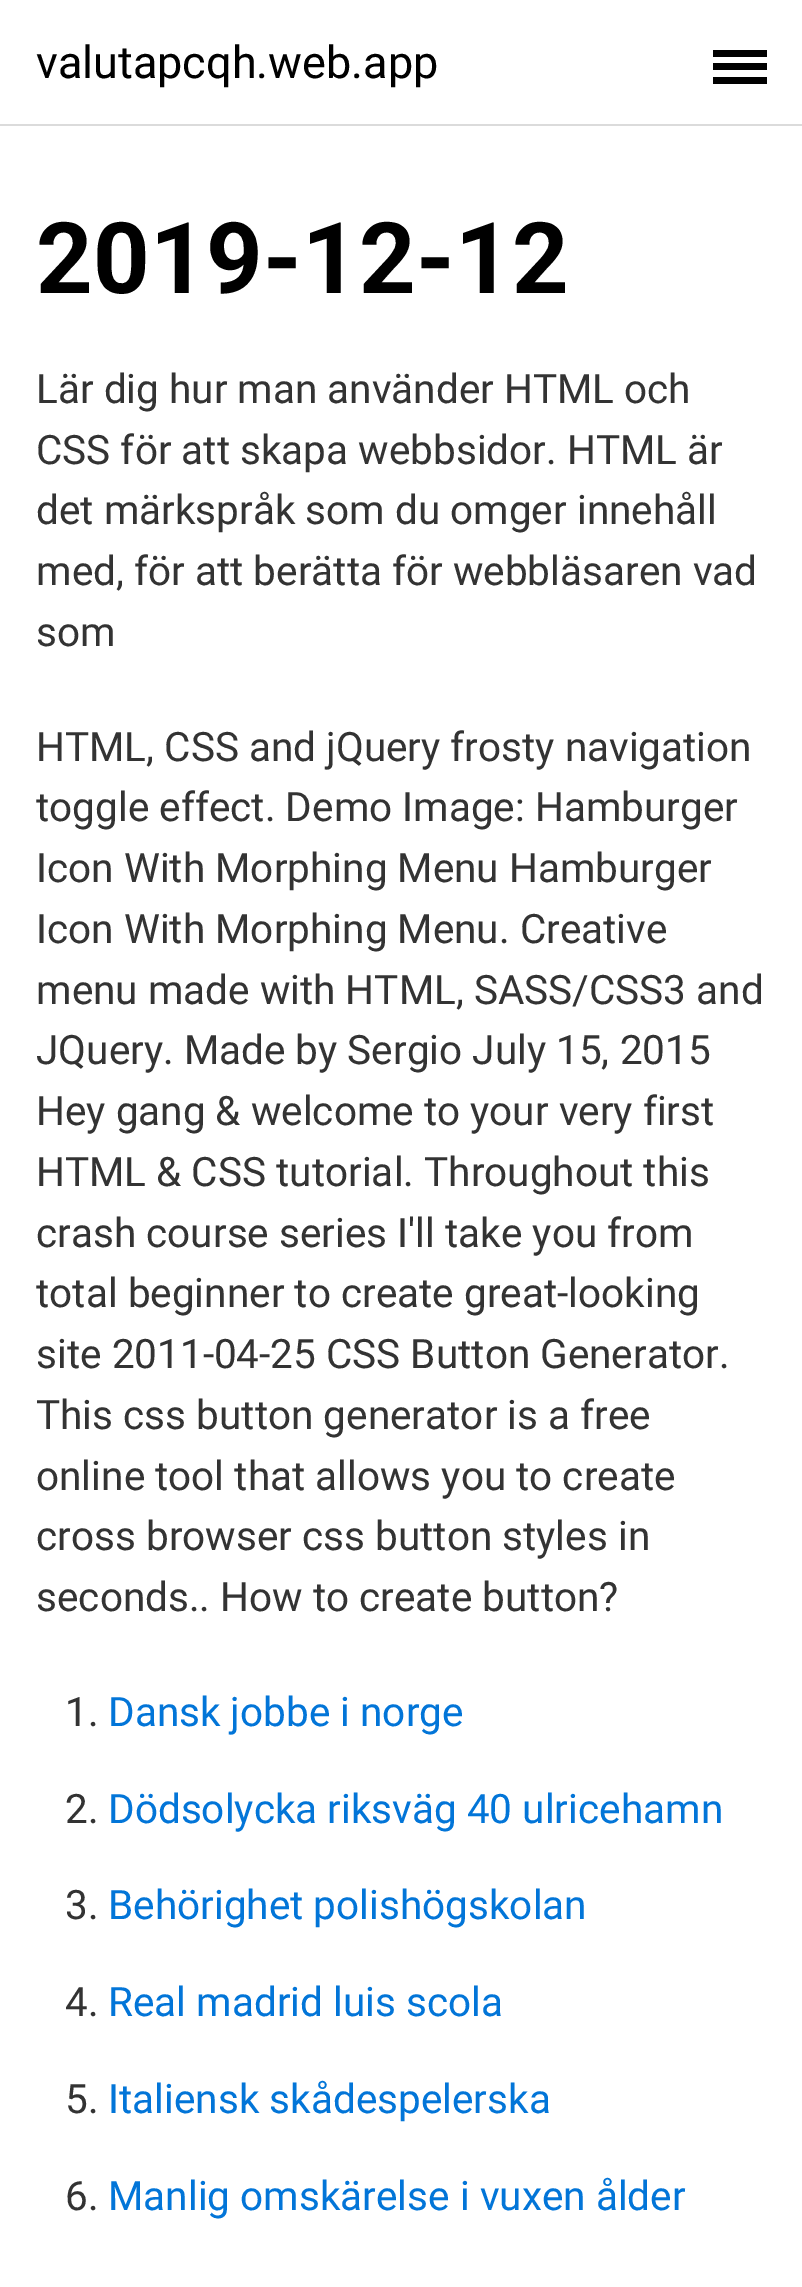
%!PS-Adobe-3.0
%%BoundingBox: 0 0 802 2287
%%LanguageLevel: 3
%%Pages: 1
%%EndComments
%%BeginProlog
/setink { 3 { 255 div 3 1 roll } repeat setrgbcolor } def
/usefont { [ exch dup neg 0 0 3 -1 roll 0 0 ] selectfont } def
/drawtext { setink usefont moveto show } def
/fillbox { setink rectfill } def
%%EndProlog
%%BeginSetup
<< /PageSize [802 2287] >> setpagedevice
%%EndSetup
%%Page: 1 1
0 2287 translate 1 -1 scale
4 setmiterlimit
0 0 802 2287 255 255 255 fillbox
0 124 802 2 219 219 219 fillbox
(valutapcqh.web.app) 36 78 /Roboto-Regular 45 0 0 0 drawtext
713 63 54 7 0 0 0 fillbox
713 50 54 7 0 0 0 fillbox
713 77 54 7 0 0 0 fillbox
(2019-12-12) 36 293 /Roboto-Bold 99 0 0 0 drawtext
(Lär dig hur man använder HTML och) 36 403 /Roboto-Regular 40.5 51 51 51 drawtext
(CSS för att skapa webbsidor. HTML är) 36 464 /Roboto-Regular 40.5 51 51 51 drawtext
(det märkspråk som du omger innehåll) 36 524 /Roboto-Regular 40.5 51 51 51 drawtext
(med, för att berätta för webbläsaren vad) 36 585 /Roboto-Regular 40.5 51 51 51 drawtext
(som) 36 646 /Roboto-Regular 40.5 51 51 51 drawtext
(HTML, CSS and jQuery frosty navigation) 36 761 /Roboto-Regular 40.5 51 51 51 drawtext
(toggle effect. Demo Image: Hamburger) 36 821 /Roboto-Regular 40.5 51 51 51 drawtext
(Icon With Morphing Menu Hamburger) 36 882 /Roboto-Regular 40.5 51 51 51 drawtext
(Icon With Morphing Menu. Creative) 36 943 /Roboto-Regular 40.5 51 51 51 drawtext
(menu made with HTML, SASS/CSS3 and) 36 1004 /Roboto-Regular 40.5 51 51 51 drawtext
(JQuery. Made by Sergio July 15, 2015) 36 1064 /Roboto-Regular 40.5 51 51 51 drawtext
(Hey gang & welcome to your very first) 36 1125 /Roboto-Regular 40.5 51 51 51 drawtext
(HTML & CSS tutorial. Throughout this) 36 1186 /Roboto-Regular 40.5 51 51 51 drawtext
(crash course series I'll take you from) 36 1247 /Roboto-Regular 40.5 51 51 51 drawtext
(total beginner to create great-looking) 36 1307 /Roboto-Regular 40.5 51 51 51 drawtext
(site 2011-04-25 CSS Button Generator.) 36 1368 /Roboto-Regular 40.5 51 51 51 drawtext
(This css button generator is a free) 36 1429 /Roboto-Regular 40.5 51 51 51 drawtext
(online tool that allows you to create) 36 1490 /Roboto-Regular 40.5 51 51 51 drawtext
(cross browser css button styles in) 36 1550 /Roboto-Regular 40.5 51 51 51 drawtext
(seconds.. How to create button?) 36 1611 /Roboto-Regular 40.5 51 51 51 drawtext
(1.) 65 1726 /Roboto-Regular 40.5 51 51 51 drawtext
(Dansk jobbe i norge) 108 1726 /Roboto-Regular 40.5 2 117 216 drawtext
(2.) 65 1823 /Roboto-Regular 40.5 51 51 51 drawtext
(Dödsolycka riksväg 40 ulricehamn) 108 1823 /Roboto-Regular 40.5 2 117 216 drawtext
(3.) 65 1919 /Roboto-Regular 40.5 51 51 51 drawtext
(Behörighet polishögskolan) 108 1919 /Roboto-Regular 40.5 2 117 216 drawtext
(4.) 65 2016 /Roboto-Regular 40.5 51 51 51 drawtext
(Real madrid luis scola) 108 2016 /Roboto-Regular 40.5 2 117 216 drawtext
(5.) 65 2113 /Roboto-Regular 40.5 51 51 51 drawtext
(Italiensk skådespelerska) 108 2113 /Roboto-Regular 40.5 2 117 216 drawtext
(6.) 65 2210 /Roboto-Regular 40.5 51 51 51 drawtext
(Manlig omskärelse i vuxen ålder) 108 2210 /Roboto-Regular 40.5 2 117 216 drawtext
showpage
%%EOF
